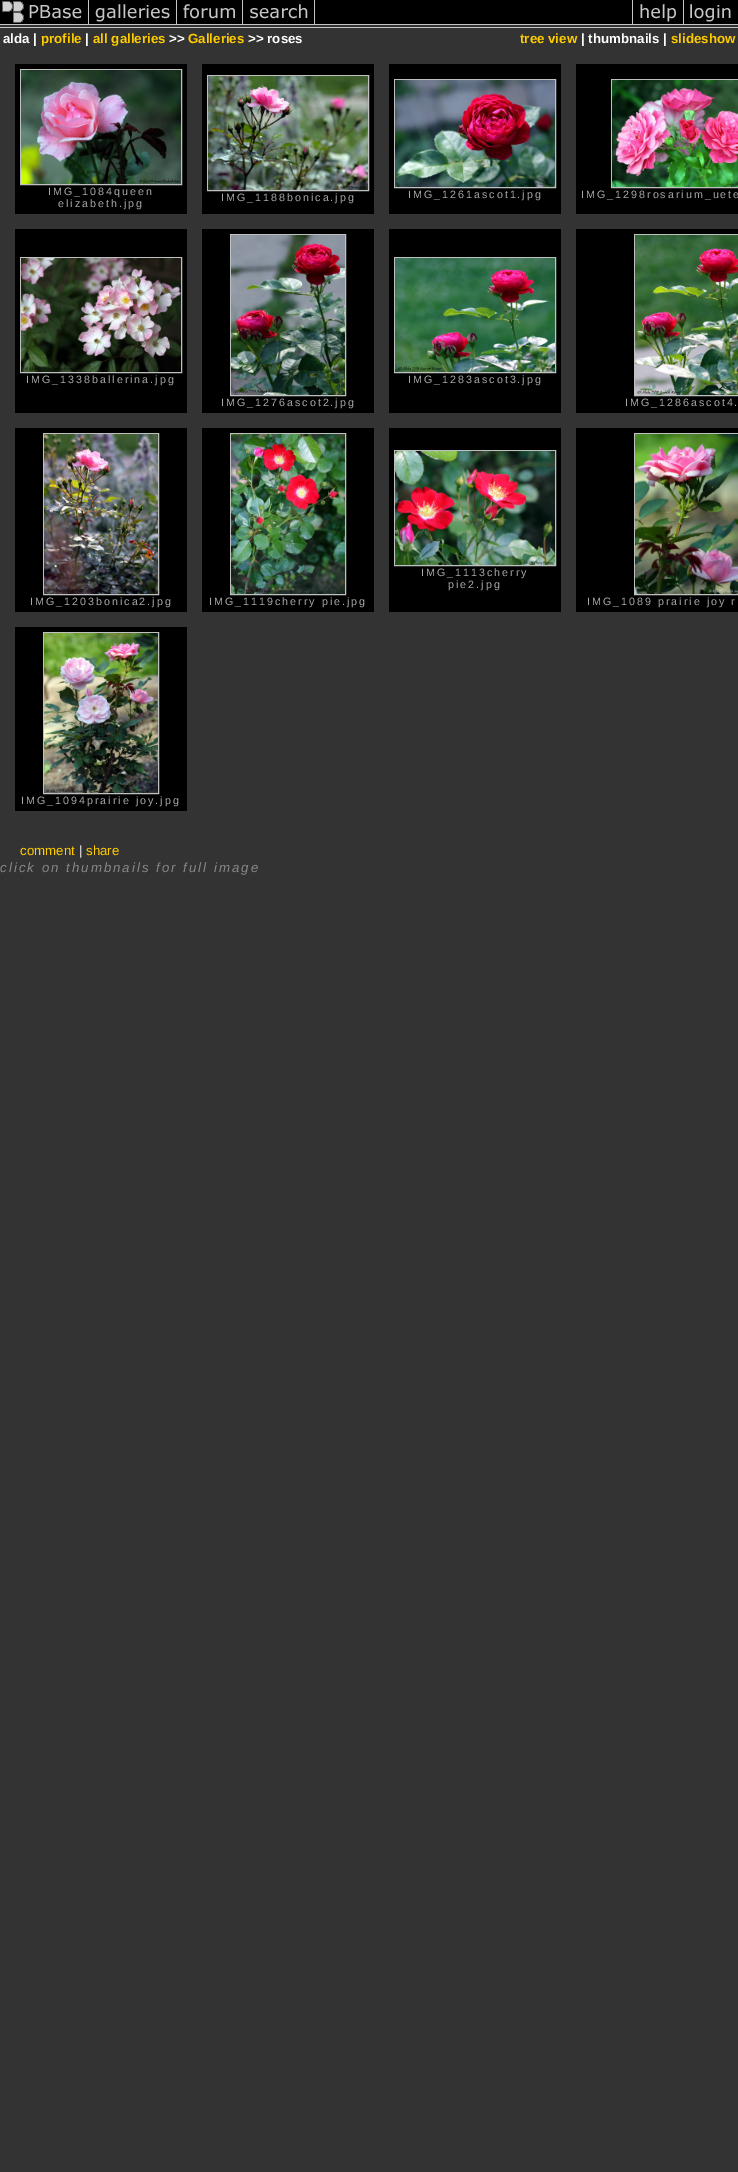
%!PS-Adobe-3.0
%%BoundingBox: 0 0 738 2172
%%LanguageLevel: 3
%%Pages: 1
%%EndComments
%%BeginProlog
/setink { 3 { 255 div 3 1 roll } repeat setrgbcolor } def
/usefont { [ exch dup neg 0 0 3 -1 roll 0 0 ] selectfont } def
/drawtext { setink usefont moveto show } def
/fillbox { setink rectfill } def
/drawimage { 5 dict begin { /h /w /y /x /name } { exch def } forall
  gsave x y translate w h scale
  w h 8 [w 0 0 h 0 0] name (r) file false 3 colorimage grestore end } def
%%EndProlog
%%BeginSetup
<< /PageSize [738 2172] >> setpagedevice
%%EndSetup
%%Page: 1 1
0 2172 translate 1 -1 scale
4 setmiterlimit
0 0 738 2172 51 51 51 fillbox
(assets/img1.rgb) 0 0 89 28 drawimage
(assets/img2.rgb) 89 0 88 28 drawimage
(assets/img3.rgb) 177 0 66 28 drawimage
(assets/img4.rgb) 243 0 72 28 drawimage
(assets/img5.rgb) 315 0 317 28 drawimage
(assets/img6.rgb) 632 0 52 28 drawimage
(assets/img7.rgb) 684 0 54 28 drawimage
(alda |) 3 43 /LiberationSans-Bold 13.3 255 255 255 drawtext
(profile) 41 43 /LiberationSans-Bold 13.3 255 204 0 drawtext
(|) 85 43 /LiberationSans-Bold 13.3 255 255 255 drawtext
(all galleries) 93 43 /LiberationSans-Bold 13.3 255 204 0 drawtext
(>>) 169 43 /LiberationSans-Bold 13.3 255 255 255 drawtext
(Galleries) 188 43 /LiberationSans-Bold 13.3 255 204 0 drawtext
(>> roses) 248 43 /LiberationSans-Bold 13.3 255 255 255 drawtext
(tree view) 520 43 /LiberationSans-Bold 13.3 255 204 0 drawtext
(| thumbnails |) 581 43 /LiberationSans-Bold 13.3 255 255 255 drawtext
(slideshow) 671 43 /LiberationSans-Bold 13.3 255 204 0 drawtext
15 64 172 150 0 0 0 fillbox
192 192 192 setink
20.5 69.5 161 115 rectstroke
(assets/img8.rgb) 21 70 160 114 drawimage
/LiberationSans-Regular 10.7 usefont
170 170 170 setink
48 195 moveto 2 0 (IMG_1084queen) ashow
58 207 moveto 2 0 (elizabeth.jpg) ashow
202 64 172 150 0 0 0 fillbox
192 192 192 setink
207.5 75.5 161 115 rectstroke
(assets/img9.rgb) 208 76 160 114 drawimage
170 170 170 setink
221 201 moveto 2 0 (IMG_1188bonica.jpg) ashow
389 64 172 150 0 0 0 fillbox
192 192 192 setink
394.5 79.5 161 108 rectstroke
(assets/img10.rgb) 395 80 160 107 drawimage
170 170 170 setink
408 198 moveto 2 0 (IMG_1261ascot1.jpg) ashow
576 64 162 150 0 0 0 fillbox
192 192 192 setink
611.5 79.5 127 108 rectstroke
(assets/img11.rgb) 612 80 126 107 drawimage
170 170 170 setink
581 198 moveto 2 0 (IMG_1298rosarium_uete) ashow
15 229 172 184 0 0 0 fillbox
192 192 192 setink
20.5 257.5 161 115 rectstroke
(assets/img12.rgb) 21 258 160 114 drawimage
170 170 170 setink
26 383 moveto 2 0 (IMG_1338ballerina.jpg) ashow
389 229 172 184 0 0 0 fillbox
192 192 192 setink
394.5 257.5 161 115 rectstroke
(assets/img13.rgb) 395 258 160 114 drawimage
170 170 170 setink
408 383 moveto 2 0 (IMG_1283ascot3.jpg) ashow
202 229 172 184 0 0 0 fillbox
192 192 192 setink
230.5 234.5 115 161 rectstroke
(assets/img14.rgb) 231 235 114 160 drawimage
170 170 170 setink
221 406 moveto 2 0 (IMG_1276ascot2.jpg) ashow
576 229 162 184 0 0 0 fillbox
192 192 192 setink
634.5 234.5 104 161 rectstroke
(assets/img15.rgb) 635 235 103 160 drawimage
170 170 170 setink
625 406 moveto 2 0 (IMG_1286ascot4.) ashow
389 428 172 184 0 0 0 fillbox
192 192 192 setink
394.5 450.5 161 115 rectstroke
(assets/img16.rgb) 395 451 160 114 drawimage
170 170 170 setink
421 576 moveto 2 0 (IMG_1113cherry) ashow
448 588 moveto 2 0 (pie2.jpg) ashow
15 428 172 184 0 0 0 fillbox
192 192 192 setink
43.5 433.5 115 161 rectstroke
(assets/img17.rgb) 44 434 114 160 drawimage
170 170 170 setink
30 605 moveto 2 0 (IMG_1203bonica2.jpg) ashow
202 428 172 184 0 0 0 fillbox
192 192 192 setink
230.5 433.5 115 161 rectstroke
(assets/img18.rgb) 231 434 114 160 drawimage
170 170 170 setink
209 605 moveto 2 0 (IMG_1119cherry pie.jpg) ashow
576 428 162 184 0 0 0 fillbox
192 192 192 setink
634.5 433.5 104 161 rectstroke
(assets/img19.rgb) 635 434 103 160 drawimage
170 170 170 setink
587 605 moveto 2 0 (IMG_1089 prairie joy r) ashow
15 627 172 184 0 0 0 fillbox
192 192 192 setink
43.5 632.5 115 161 rectstroke
(assets/img20.rgb) 44 633 114 160 drawimage
170 170 170 setink
21 804 moveto 2 0 (IMG_1094prairie joy.jpg) ashow
(comment) 20 855 /LiberationSans-Regular 13.3 255 204 0 drawtext
(|) 79 855 /LiberationSans-Regular 13.3 255 255 255 drawtext
(share) 86 855 /LiberationSans-Regular 13.3 255 204 0 drawtext
/LiberationSans-Italic 13.3 usefont
136 136 136 setink
0 872 moveto 2 0 (click on thumbnails for full image) ashow
showpage
%%EOF
